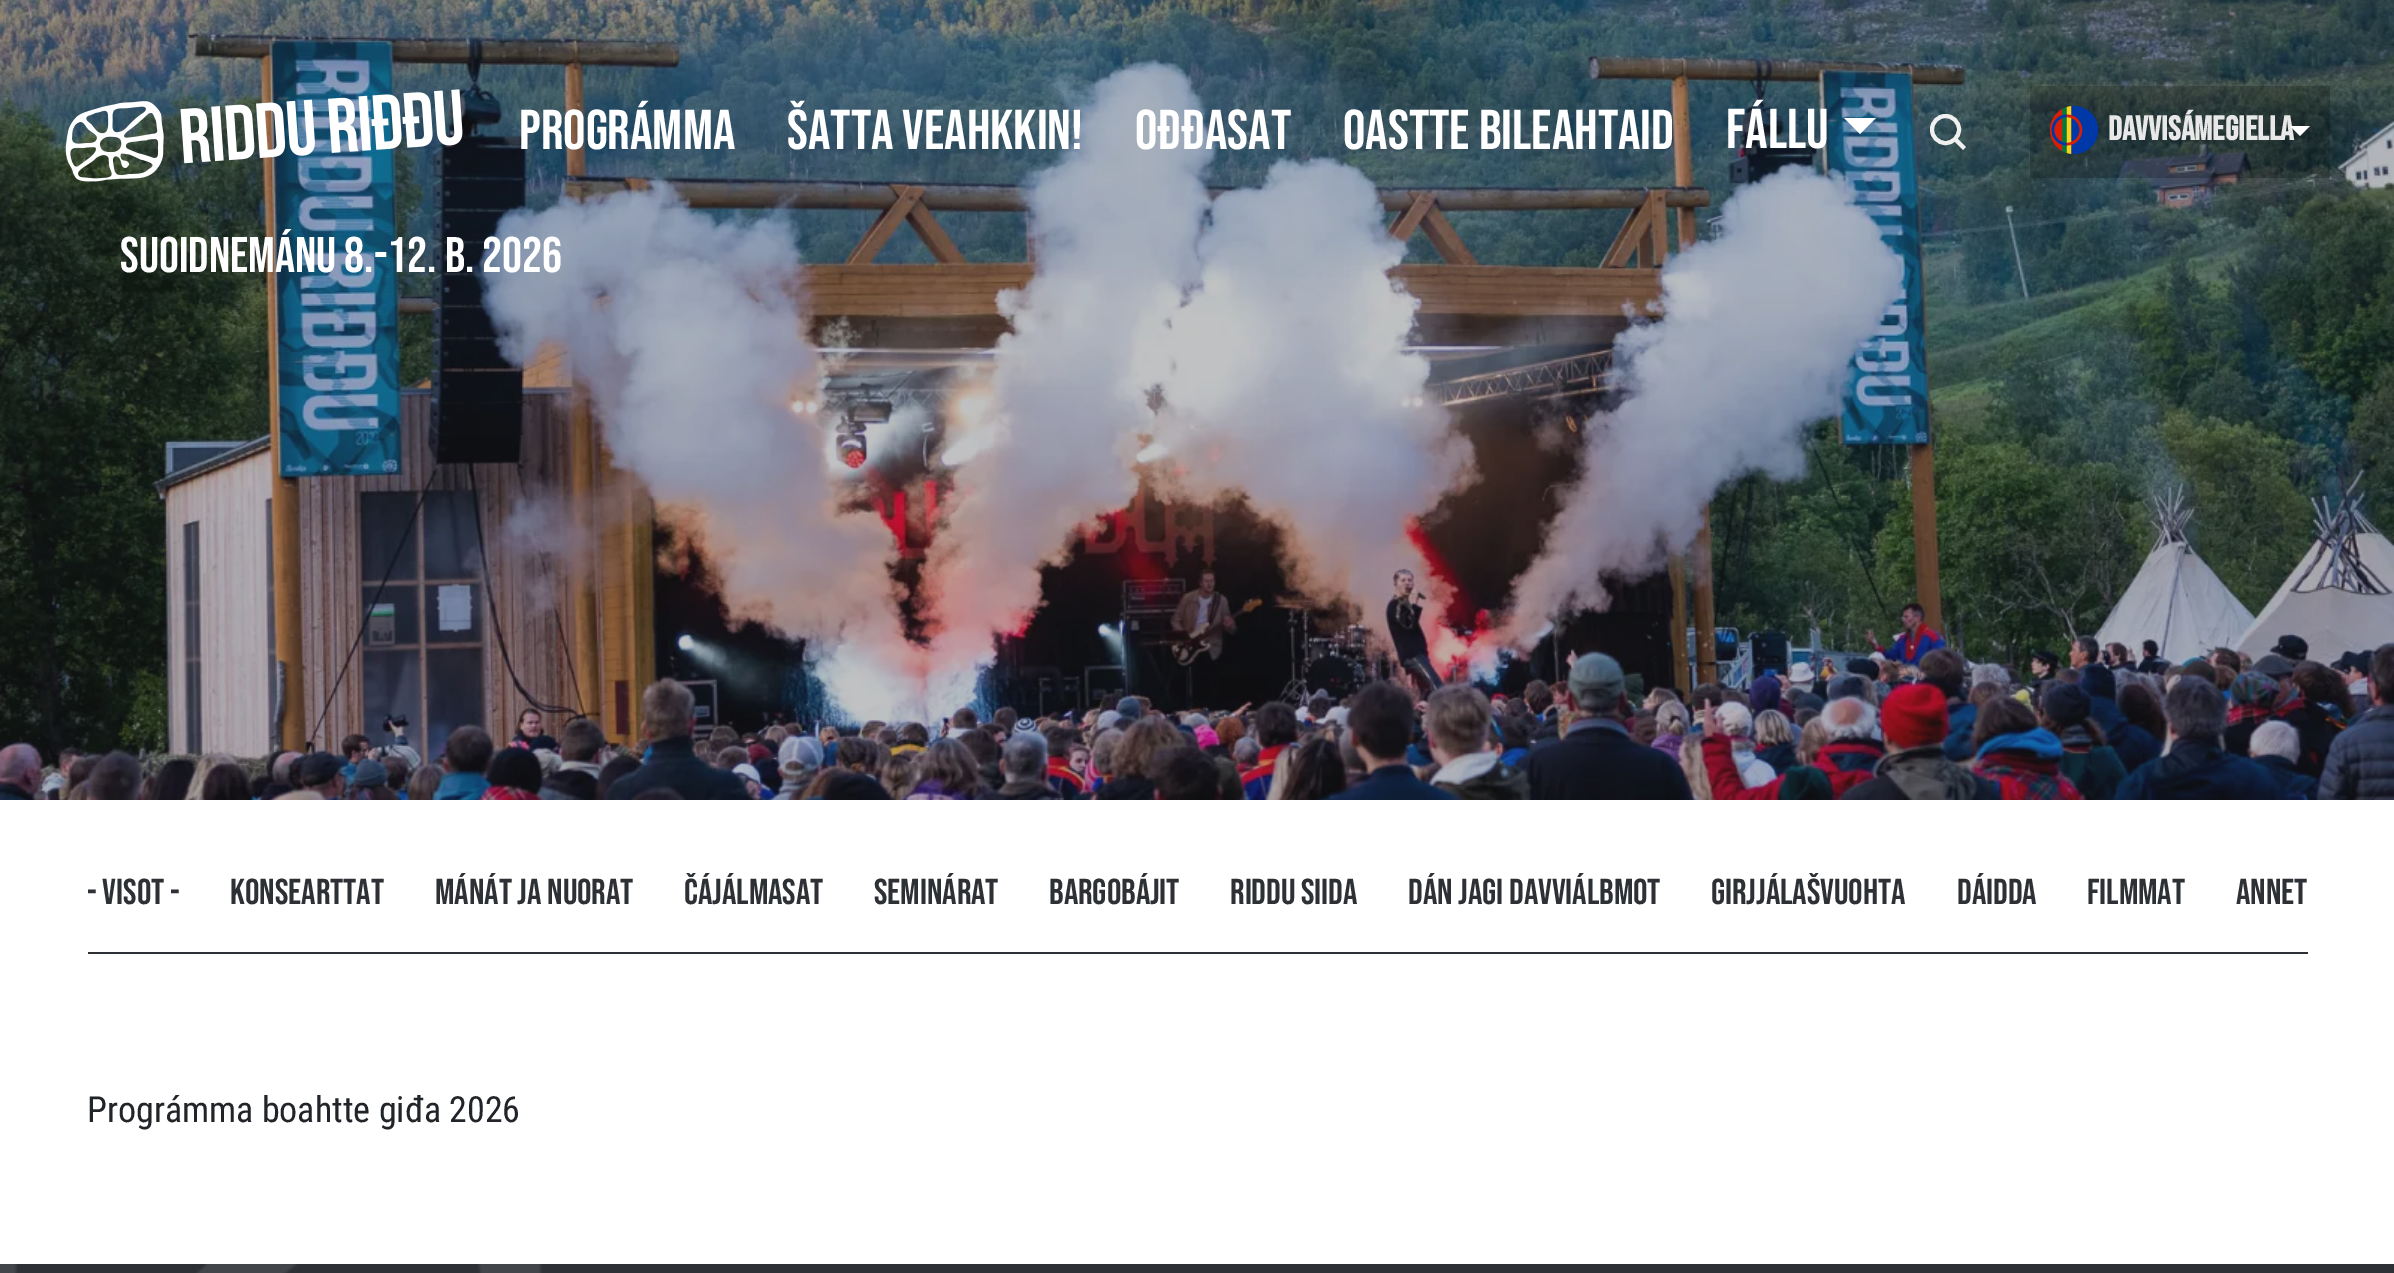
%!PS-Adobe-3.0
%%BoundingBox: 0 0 2394 1273
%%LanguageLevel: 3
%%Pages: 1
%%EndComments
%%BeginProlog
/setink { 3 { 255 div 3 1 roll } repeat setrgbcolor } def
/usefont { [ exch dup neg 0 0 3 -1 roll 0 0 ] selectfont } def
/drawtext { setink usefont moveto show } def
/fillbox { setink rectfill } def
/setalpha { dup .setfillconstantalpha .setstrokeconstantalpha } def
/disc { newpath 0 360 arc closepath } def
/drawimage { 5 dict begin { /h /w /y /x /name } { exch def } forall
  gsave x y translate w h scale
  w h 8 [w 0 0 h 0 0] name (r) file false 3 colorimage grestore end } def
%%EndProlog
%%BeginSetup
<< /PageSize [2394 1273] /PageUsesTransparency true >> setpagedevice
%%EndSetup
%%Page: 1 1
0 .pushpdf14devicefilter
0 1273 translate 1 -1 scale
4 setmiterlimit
0 0 2394 1273 255 255 255 fillbox
(assets/img1.rgb) 0 0 2394 800 drawimage
(assets/img2.rgb) 65 89 398 93 drawimage
(PROGRÁMMA) 519 149 /BebasNeue-Regular 56 255 255 255 drawtext
(ŠATTA VEAHKKIN!) 787 149 /BebasNeue-Regular 56 255 255 255 drawtext
(OĐĐASAT) 1135 149 /BebasNeue-Regular 56 255 255 255 drawtext
(OASTTE BILEAHTAID) 1343 149 /BebasNeue-Regular 56 255 255 255 drawtext
(FÁLLU) 1726 148 /BebasNeue-Regular 56 255 255 255 drawtext
1844 118 moveto 1876 118 lineto 1860 134 lineto closepath fill
240 240 241 setink
4 setlinewidth
1945.5 129.5 13.5 disc stroke
2 setlinecap
1957 141 moveto 1963 147 lineto stroke
0.2 setalpha
2030 86 300 92 0 0 0 fillbox
1 setalpha
(assets/img3.rgb) 2050 106 48 48 drawimage
(Davvisámegiella) 2108 140 /BebasNeue-Bold 34 232 232 232 drawtext
255 255 255 setink
2290 126 moveto 2310 126 lineto 2300 136 lineto closepath fill
(Suoidnemánu 8.-12. b. 2026) 120 272 /BebasNeue-Regular 50 255 255 255 drawtext
88 952 2220 2 45 48 52 fillbox
(- Visot -) 87 904 /BebasNeue-Regular 36 45 48 52 drawtext
(Konsearttat) 230 904 /BebasNeue-Regular 36 45 48 52 drawtext
(Mánát ja nuorat) 435 904 /BebasNeue-Regular 36 45 48 52 drawtext
(Čájálmasat) 684 904 /BebasNeue-Regular 36 45 48 52 drawtext
(Seminárat) 874 904 /BebasNeue-Regular 36 45 48 52 drawtext
(Bargobájit) 1049 904 /BebasNeue-Regular 36 45 48 52 drawtext
(Riddu siida) 1230 904 /BebasNeue-Regular 36 45 48 52 drawtext
(Dán jagi davviálbmot) 1408 904 /BebasNeue-Regular 36 45 48 52 drawtext
(Girjjálašvuohta) 1711 904 /BebasNeue-Regular 36 45 48 52 drawtext
(Dáidda) 1957 904 /BebasNeue-Regular 36 45 48 52 drawtext
(Filmmat) 2087 904 /BebasNeue-Regular 36 45 48 52 drawtext
(Annet) 2236 904 /BebasNeue-Regular 36 45 48 52 drawtext
(Prográmma boahtte giđa 2026) 87 1122 /RobotoCondensed-Regular 36 33 37 41 drawtext
0 1264 2394 9 45 48 52 fillbox
(assets/img4.rgb) 0 1264 542 9 drawimage
.poppdf14devicefilter showpage
%%EOF
